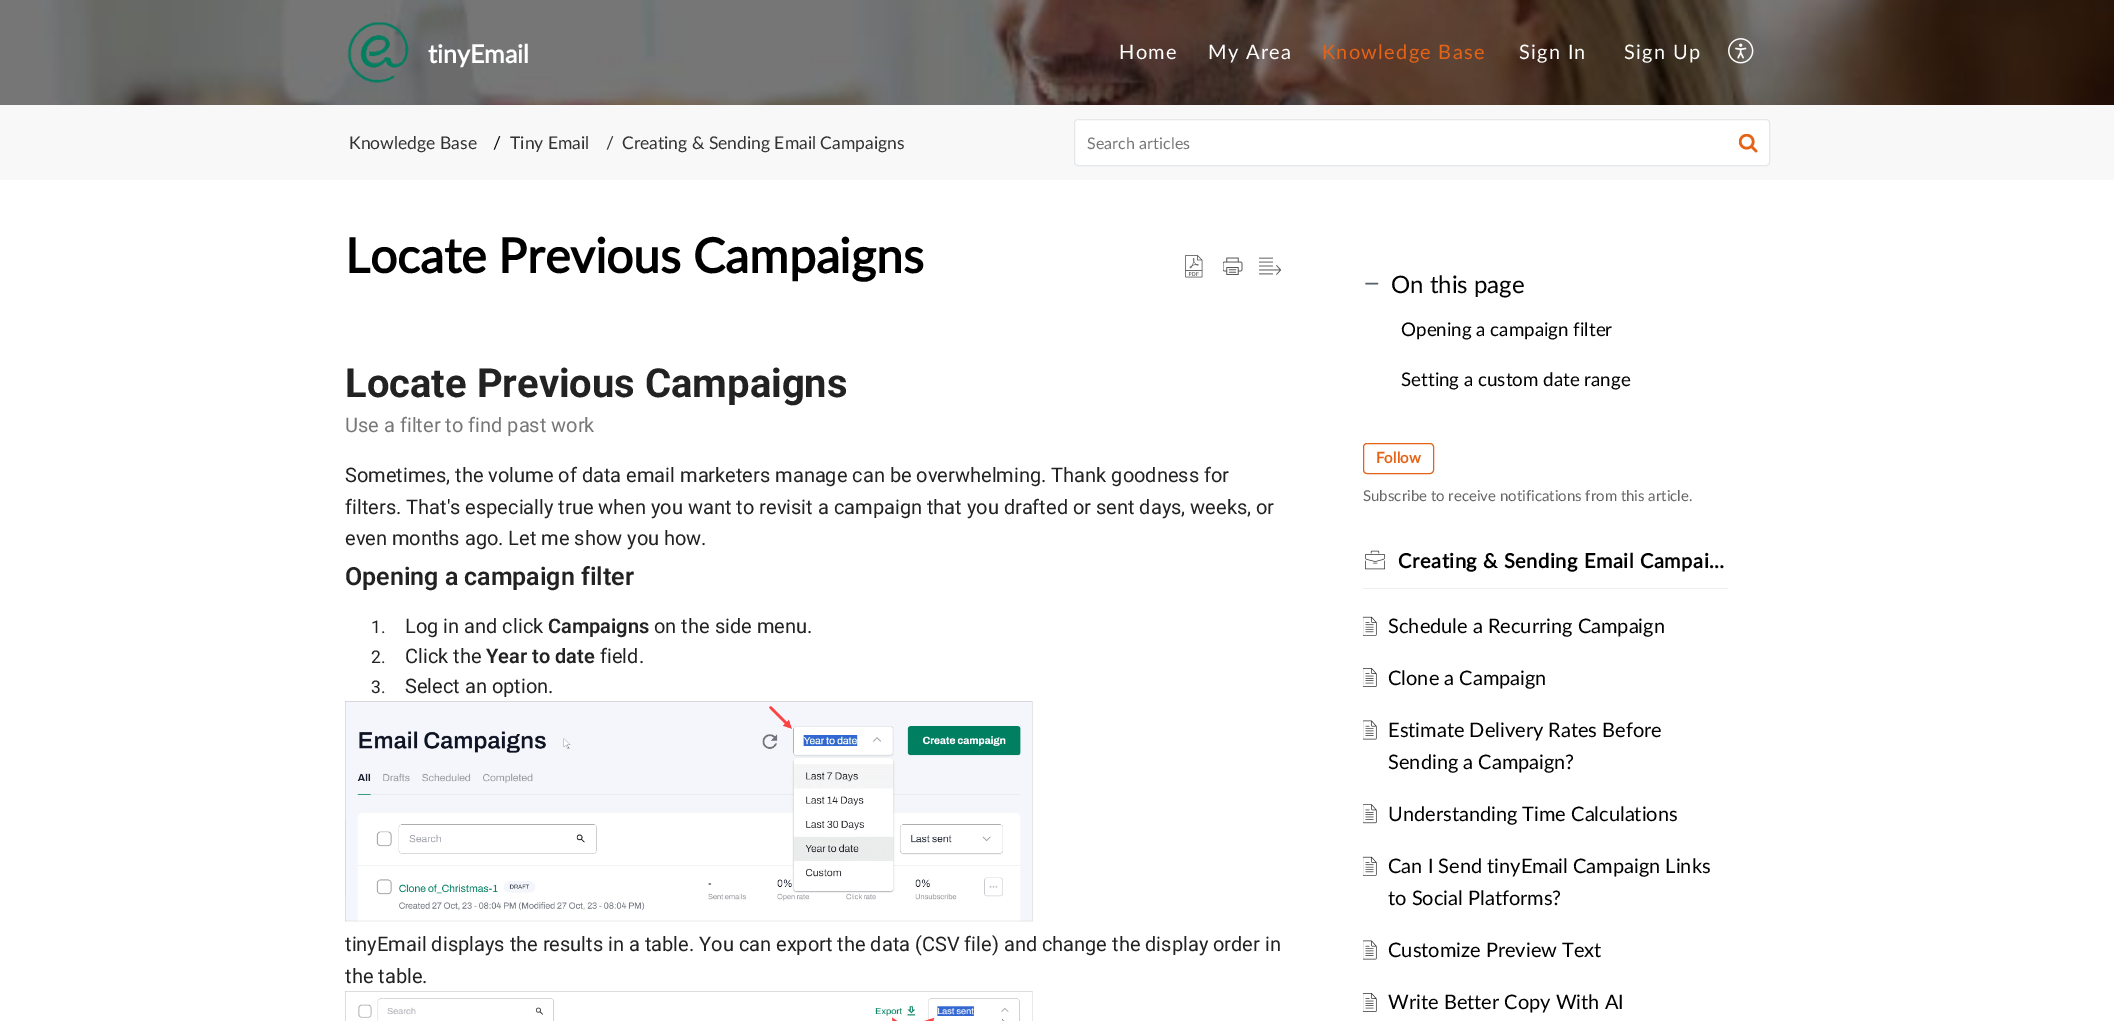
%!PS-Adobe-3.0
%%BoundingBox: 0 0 2114 1021
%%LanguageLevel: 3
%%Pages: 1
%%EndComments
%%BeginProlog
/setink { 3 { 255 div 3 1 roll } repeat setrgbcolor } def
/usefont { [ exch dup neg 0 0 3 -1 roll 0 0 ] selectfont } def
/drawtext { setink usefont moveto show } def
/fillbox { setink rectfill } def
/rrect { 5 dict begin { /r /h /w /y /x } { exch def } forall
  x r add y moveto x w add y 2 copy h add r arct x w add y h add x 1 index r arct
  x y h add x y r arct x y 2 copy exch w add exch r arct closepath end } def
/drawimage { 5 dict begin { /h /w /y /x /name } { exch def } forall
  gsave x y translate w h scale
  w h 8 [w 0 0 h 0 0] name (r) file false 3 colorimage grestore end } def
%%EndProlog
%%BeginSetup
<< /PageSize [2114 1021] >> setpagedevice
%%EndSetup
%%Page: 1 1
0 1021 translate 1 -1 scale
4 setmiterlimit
0 0 2114 1021 255 255 255 fillbox
(assets/img1.rgb) 0 0 2114 105 drawimage
(assets/img2.rgb) 347 22 62 61 drawimage
(tinyEmail) 428 63 /Lato-Bold 25 255 255 255 drawtext
/Lato-Regular 20 usefont
1119 59 moveto 1.25 0 (Home) ashow
1208 59 moveto 1.25 0 (My Area) ashow
228 99 23 setink
1322 59 moveto 1.25 0 (Knowledge Base) ashow
255 255 255 setink
1519 59 moveto 1.25 0 (Sign In) ashow
1624 59 moveto 1.25 0 (Sign Up) ashow
(assets/img3.rgb) 1728 38 26 26 drawimage
0 105 2114 75 248 248 248 fillbox
(Knowledge Base) 349 149 /Lato-Regular 17.5 51 51 51 drawtext
(/) 493 149 /Lato-Regular 17.5 0 0 0 drawtext
(Tiny Email) 510 149 /Lato-Regular 17.5 51 51 51 drawtext
(/) 606 149 /Lato-Regular 17.5 51 51 51 drawtext
(Creating & Sending Email Campaigns) 622 149 /Lato-Regular 17.5 51 51 51 drawtext
255 255 255 setink
1074.5 119.5 695 46 3.5 rrect gsave fill grestore
229 232 234 setink
stroke
/Lato-Regular 16 usefont
119 119 119 setink
1087 149 moveto 0.1 0 (Search articles) ashow
(assets/img4.rgb) 1739 134 19 19 drawimage
(Locate Previous Campaigns) 345 273 /Lato-Bold 48 0 0 0 drawtext
(assets/img5.rgb) 1185 255 18 23 drawimage
(assets/img6.rgb) 1223 257 20 18 drawimage
(assets/img7.rgb) 1258 257 24 18 drawimage
(Locate Previous Campaigns) 345 397 /Roboto-Bold 40 34 34 34 drawtext
(Use a filter to find past work) 345 432 /Roboto-Regular 20 119 119 119 drawtext
(Sometimes, the volume of data email marketers manage can be overwhelming. Thank goodness for) 345 482 /Roboto-Regular 20 34 34 34 drawtext
(filters. That's especially true when you want to revisit a campaign that you drafted or sent days, weeks, or) 345 514 /Roboto-Regular 20 34 34 34 drawtext
(even months ago. Let me show you how.) 345 545 /Roboto-Regular 20 34 34 34 drawtext
(Opening a campaign filter) 345 585 /Roboto-SemiBold 25 34 34 34 drawtext
(1.) 371 633 /Roboto-Regular 17.5 34 34 34 drawtext
(Log in and click) 405 633 /Roboto-Regular 20 34 34 34 drawtext
(Campaigns) 548 633 /Roboto-SemiBold 20 34 34 34 drawtext
(on the side menu.) 654 633 /Roboto-Regular 20 34 34 34 drawtext
(2.) 371 663 /Roboto-Regular 17.5 34 34 34 drawtext
(Click the) 405 663 /Roboto-Regular 20 34 34 34 drawtext
(Year to date) 486 663 /Roboto-SemiBold 20 34 34 34 drawtext
(field.) 600 663 /Roboto-Regular 20 34 34 34 drawtext
(3.) 371 693 /Roboto-Regular 17.5 34 34 34 drawtext
(Select an option.) 405 693 /Roboto-Regular 20 34 34 34 drawtext
(assets/img8.rgb) 345 701 688 221 drawimage
(tinyEmail displays the results in a table. You can export the data \(CSV file\) and change the display order in) 345 951 /Roboto-Regular 20 34 34 34 drawtext
(the table.) 345 983 /Roboto-Regular 20 34 34 34 drawtext
(assets/img9.rgb) 345 991 688 30 drawimage
90 97 111 setink
1.5 setlinewidth
1 setlinecap
1 setlinejoin
1377.5 283.5 moveto 1366 283.5 lineto stroke
(On this page) 1391 293 /Lato-Regular 24 0 0 0 drawtext
(Opening a campaign filter) 1401 336 /Lato-Regular 18.75 0 0 0 drawtext
(Setting a custom date range) 1401 386 /Lato-Regular 18.75 0 0 0 drawtext
228 99 23 setink
1 setlinewidth
0 setlinecap
0 setlinejoin
1363.5 443.5 70 30 3.5 rrect stroke
(Follow) 1376 463 /Lato-Bold 15 228 99 23 drawtext
(Subscribe to receive notifications from this article.) 1363 501 /Lato-Regular 15 102 102 102 drawtext
1363 588 365 1 239 239 239 fillbox
(assets/img10.rgb) 1365 550 20 20 drawimage
/Lato-Bold 20 usefont
0 0 0 setink
1398 568 moveto 0.6 0 (Creating & Sending Email Campai…) ashow
(assets/img11.rgb) 1363 616 14 20 drawimage
(Schedule a Recurring Campaign) 1388 633 /Lato-Regular 20 0 0 0 drawtext
(assets/img12.rgb) 1363 668 14 19 drawimage
(Clone a Campaign) 1388 685 /Lato-Regular 20 0 0 0 drawtext
(assets/img13.rgb) 1363 720 14 20 drawimage
(Estimate Delivery Rates Before) 1388 737 /Lato-Regular 20 0 0 0 drawtext
(Sending a Campaign?) 1388 769 /Lato-Regular 20 0 0 0 drawtext
(assets/img14.rgb) 1363 804 14 20 drawimage
(Understanding Time Calculations) 1388 821 /Lato-Regular 20 0 0 0 drawtext
(assets/img11.rgb) 1363 856 14 20 drawimage
(Can I Send tinyEmail Campaign Links) 1388 873 /Lato-Regular 20 0 0 0 drawtext
(to Social Platforms?) 1388 905 /Lato-Regular 20 0 0 0 drawtext
(assets/img13.rgb) 1363 940 14 20 drawimage
(Customize Preview Text) 1388 957 /Lato-Regular 20 0 0 0 drawtext
(assets/img12.rgb) 1363 993 14 19 drawimage
(Write Better Copy With AI) 1388 1009 /Lato-Regular 20 0 0 0 drawtext
showpage
%%EOF
